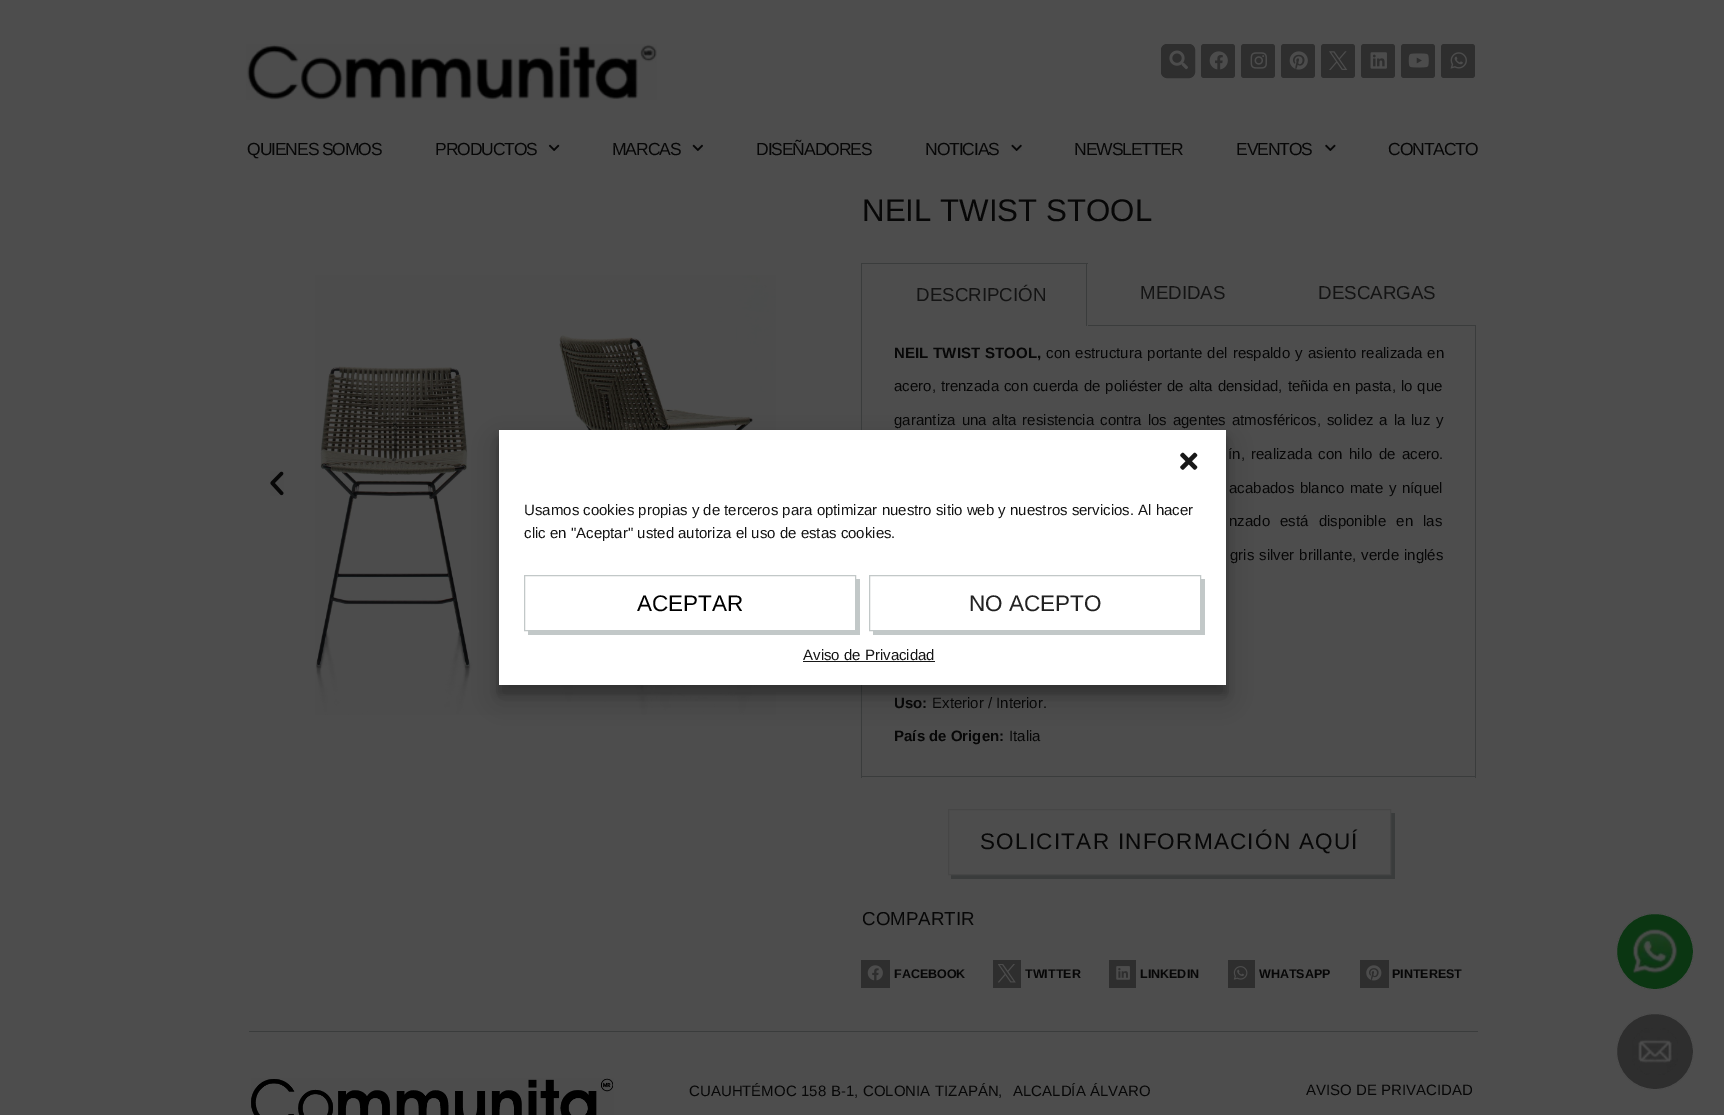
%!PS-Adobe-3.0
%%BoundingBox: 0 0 1724 1115
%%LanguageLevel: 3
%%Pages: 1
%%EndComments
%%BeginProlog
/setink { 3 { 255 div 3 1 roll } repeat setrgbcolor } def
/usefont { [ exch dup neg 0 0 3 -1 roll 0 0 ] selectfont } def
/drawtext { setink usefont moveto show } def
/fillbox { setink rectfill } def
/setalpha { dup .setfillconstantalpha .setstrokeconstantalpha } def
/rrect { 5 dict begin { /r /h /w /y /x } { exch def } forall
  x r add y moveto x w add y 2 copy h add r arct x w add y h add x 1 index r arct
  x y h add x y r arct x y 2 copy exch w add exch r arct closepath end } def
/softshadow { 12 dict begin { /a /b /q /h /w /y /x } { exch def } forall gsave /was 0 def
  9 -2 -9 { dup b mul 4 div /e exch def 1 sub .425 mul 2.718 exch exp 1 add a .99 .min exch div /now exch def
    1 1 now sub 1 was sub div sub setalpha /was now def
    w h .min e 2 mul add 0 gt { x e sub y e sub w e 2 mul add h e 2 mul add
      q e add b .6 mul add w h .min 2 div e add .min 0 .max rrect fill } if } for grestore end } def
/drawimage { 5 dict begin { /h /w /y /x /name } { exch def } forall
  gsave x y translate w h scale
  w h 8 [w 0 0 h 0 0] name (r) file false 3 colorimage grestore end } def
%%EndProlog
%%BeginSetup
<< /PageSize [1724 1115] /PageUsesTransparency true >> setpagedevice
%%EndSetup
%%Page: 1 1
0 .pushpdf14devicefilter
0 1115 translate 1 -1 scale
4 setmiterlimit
0 0 1724 1115 77 77 77 fillbox
(assets/img1.rgb) 246 44 411 56 drawimage
46 46 46 setink
1161.5 44.5 33 33 5.5 rrect gsave fill grestore
stroke
(assets/img2.rgb) 1169 50 19 20 drawimage
1201 44 34 34 3 rrect fill
(assets/img3.rgb) 1209 51 19 19 drawimage
1241 44 34 34 3 rrect fill
(assets/img4.rgb) 1250 52 17 17 drawimage
1281 44 34 34 3 rrect fill
(assets/img5.rgb) 1289 51 19 19 drawimage
1321 44 34 34 3 rrect fill
(assets/img6.rgb) 1329 51 19 19 drawimage
1361 44 34 34 3 rrect fill
(assets/img7.rgb) 1370 52 17 17 drawimage
1401 44 34 34 3 rrect fill
(assets/img8.rgb) 1408 53 21 15 drawimage
1441 44 34 34 3 rrect fill
(assets/img9.rgb) 1450 52 17 17 drawimage
/LiberationSans-Regular 17.5 usefont
7 7 7 setink
247 155 moveto -1.1 0 (QUIENES SOMOS) ashow
435 155 moveto -1.1 0 (PRODUCTOS) ashow
(assets/img10.rgb) 548 144 12 7 drawimage
612 155 moveto -1.1 0 (MARCAS) ashow
(assets/img11.rgb) 692 144 11 7 drawimage
756 155 moveto -1.1 0 (DISEÑADORES) ashow
925 155 moveto -1.1 0 (NOTICIAS) ashow
(assets/img12.rgb) 1011 144 11 7 drawimage
1074 155 moveto -1.1 0 (NEWSLETTER) ashow
1236 155 moveto -1.1 0 (EVENTOS) ashow
(assets/img13.rgb) 1325 144 11 7 drawimage
1388 155 moveto -1.1 0 (CONTACTO) ashow
11 54 18 setink
1616.5 913.5 77 76 38 rrect gsave fill grestore
77 77 77 setink
stroke
(assets/img14.rgb) 1632 928 46 46 drawimage
46 46 46 setink
1616.5 1013.5 77 76 38 rrect gsave fill grestore
77 77 77 setink
stroke
(assets/img15.rgb) 1632 1028 46 47 drawimage
(assets/img16.rgb) 270 471 14 25 drawimage
(assets/img17.rgb) 315 275 461 440 drawimage
(NEIL TWIST STOOL) 862 221 /LiberationSans-Regular 31.25 7 7 7 drawtext
861 263 227 1 58 60 60 fillbox
1086 263 1 63 58 60 60 fillbox
861 263 1 63 58 60 60 fillbox
(DESCRIPCIÓN) 916 301 /LiberationSans-Regular 18.75 20 20 20 drawtext
1088 325 388 1 58 60 60 fillbox
(MEDIDAS) 1140 299 /LiberationSans-Regular 18.75 20 20 20 drawtext
(DESCARGAS) 1318 299 /LiberationSans-Regular 18.75 20 20 20 drawtext
1475 326 1 452 58 60 60 fillbox
861 776 615 1 58 60 60 fillbox
861 326 1 452 58 60 60 fillbox
/LiberationSans-Bold 15 usefont
7 7 7 setink
894 358 moveto 1 0 32 (NEIL TWIST STOOL,) widthshow
/LiberationSans-Regular 15 usefont
1046 358 moveto 1 0 32 (con estructura portante del respaldo y asiento realizada en) widthshow
894 391 moveto 0.75 0 32 (acero, trenzada con cuerda de poliéster de alta densidad, teñida en pasta, lo que) widthshow
894 425 moveto 1.7 0 32 (garantiza una alta resistencia contra los agentes atmosféricos, solidez a la luz y) widthshow
1228 459 moveto 2.25 0 32 (ín, realizada con hilo de acero.) widthshow
1229 493 moveto 1.5 0 32 (acabados blanco mate y níquel) widthshow
1229 526 moveto 6 0 32 (nzado está disponible en las) widthshow
1230 560 moveto 1 0 32 (gris silver brillante, verde inglés) widthshow
(Uso:) 894 708 /LiberationSans-Bold 15 7 7 7 drawtext
(Exterior / Interior.) 932 708 /LiberationSans-Regular 15 7 7 7 drawtext
(País de Origen:) 894 741 /LiberationSans-Bold 15 7 7 7 drawtext
(Italia) 1009 741 /LiberationSans-Regular 15 7 7 7 drawtext
58 60 60 setink
951 875 moveto 951 879 lineto 1395 879 lineto 1395 813 lineto 1391 813 lineto 1391 875 lineto closepath fill
70 70 70 setink
948.5 809.5 442 65 rectstroke
/LiberationSans-Regular 22.5 usefont
7 7 7 setink
980 849 moveto 1.25 0 (SOLICITAR INFORMACIÓN AQUÍ) ashow
(COMPARTIR) 862 925 /LiberationSans-Regular 18.75 7 7 7 drawtext
861 960 29 28 46 46 46 fillbox
(assets/img18.rgb) 867 965 16 16 drawimage
(FACEBOOK) 894 978 /LiberationSans-Bold 12.5 7 7 7 drawtext
993 960 28 28 46 46 46 fillbox
(assets/img19.rgb) 998 964 18 19 drawimage
(TWITTER) 1025 978 /LiberationSans-Bold 12.5 7 7 7 drawtext
1109 960 27 28 46 46 46 fillbox
(assets/img20.rgb) 1116 966 14 14 drawimage
(LINKEDIN) 1140 978 /LiberationSans-Bold 12.5 7 7 7 drawtext
1228 960 27 28 46 46 46 fillbox
(assets/img21.rgb) 1233 966 15 14 drawimage
(WHATSAPP) 1259 978 /LiberationSans-Bold 12.5 7 7 7 drawtext
1360 960 29 28 46 46 46 fillbox
(assets/img22.rgb) 1366 965 16 16 drawimage
(PINTEREST) 1392 978 /LiberationSans-Bold 12.5 7 7 7 drawtext
0 0 0 setink
499 438 727 255 0 4 0.23 softshadow
499 443 727 255 0 12.5 0.19 softshadow
499 430 727 255 255 255 255 fillbox
(assets/img23.rgb) 1180 452 18 18 drawimage
(Usamos cookies propias y de terceros para optimizar nuestro sitio web y nuestros servicios. Al hacer) 524 515 /LiberationSans-Regular 15 20 20 20 drawtext
(clic en "Aceptar" usted autoriza el uso de estas cookies.) 524 538 /LiberationSans-Regular 15 20 20 20 drawtext
194 200 200 setink
528 631 moveto 528 635 lineto 860 635 lineto 860 579 lineto 856 579 lineto 856 631 lineto closepath fill
524.5 575.5 331 55 rectstroke
(ACEPTAR) 637 611 /LiberationSans-Regular 22.5 0 0 0 drawtext
194 200 200 setink
873 631 moveto 873 635 lineto 1205 635 lineto 1205 579 lineto 1201 579 lineto 1201 631 lineto closepath fill
869.5 575.5 331 55 rectstroke
(NO ACEPTO) 969 611 /LiberationSans-Regular 22.5 34 34 34 drawtext
(Aviso de Privacidad) 803 660 /LiberationSans-Regular 15 20 20 20 drawtext
803 661 132 1 24 24 24 fillbox
249 1031 1229 1 58 60 60 fillbox
(assets/img24.rgb) 251 1078 363 37 drawimage
7 7 7 setink
689 1096 moveto 0.5 0 32 (CUAUHTÉMOC 158 B-1, COLONIA TIZAPÁN,) widthshow
(ALCALDÍA ÁLVARO) 1013 1096 /LiberationSans-Regular 15 7 7 7 drawtext
(AVISO DE PRIVACIDAD) 1306 1095 /LiberationSans-Regular 15 7 7 7 drawtext
.poppdf14devicefilter showpage
%%EOF
